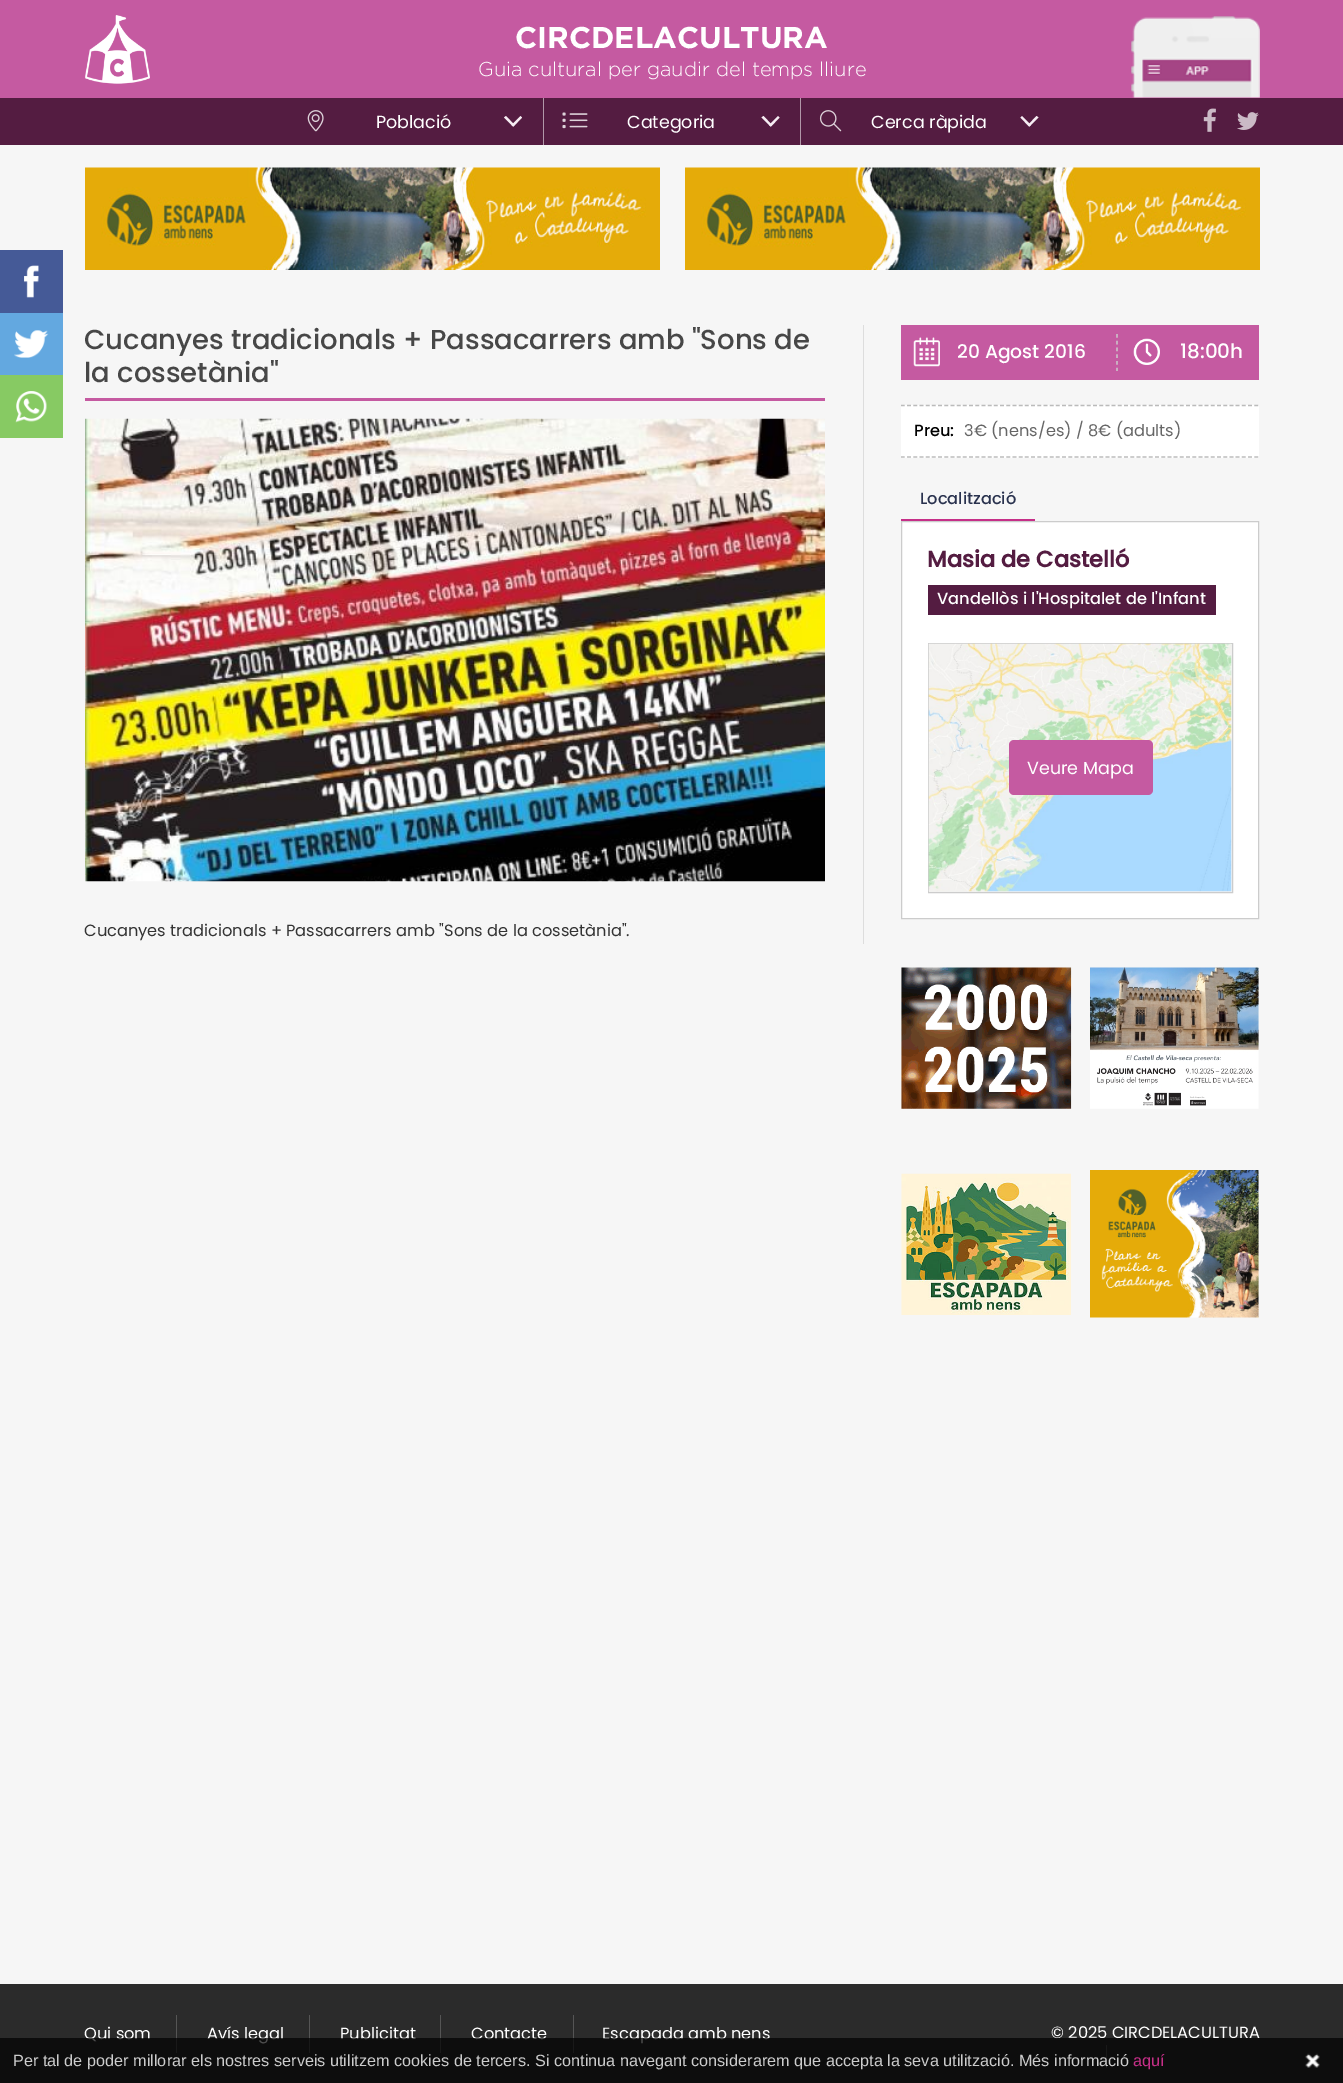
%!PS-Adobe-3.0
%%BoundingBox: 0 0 1343 2083
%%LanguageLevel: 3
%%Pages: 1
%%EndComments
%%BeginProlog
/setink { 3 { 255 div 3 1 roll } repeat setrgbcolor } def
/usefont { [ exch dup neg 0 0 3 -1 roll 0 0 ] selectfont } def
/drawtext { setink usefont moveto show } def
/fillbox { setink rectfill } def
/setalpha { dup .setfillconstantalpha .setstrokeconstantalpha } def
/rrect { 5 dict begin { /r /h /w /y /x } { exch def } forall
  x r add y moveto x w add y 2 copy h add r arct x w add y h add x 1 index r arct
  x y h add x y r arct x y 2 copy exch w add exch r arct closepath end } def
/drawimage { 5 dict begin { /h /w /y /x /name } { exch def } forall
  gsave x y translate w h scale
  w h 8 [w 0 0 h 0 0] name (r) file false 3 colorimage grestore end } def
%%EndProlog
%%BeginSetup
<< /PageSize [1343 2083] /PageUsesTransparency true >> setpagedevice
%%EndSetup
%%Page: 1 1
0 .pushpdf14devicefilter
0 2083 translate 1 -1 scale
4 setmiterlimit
0 0 1343 2083 246 246 246 fillbox
0 0 1343 98 197 90 161 fillbox
(assets/img1.rgb) 85 15 65 69 drawimage
(CIRCDELACULTURA) 515 48 /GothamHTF-Bold 30 255 255 255 drawtext
(assets/img2.rgb) 1131 16 129 82 drawimage
(Guia cultural per gaudir del temps lliure) 478 76 /GothamHTF-Light 20 255 255 255 drawtext
0 98 1343 47 84 28 65 fillbox
(assets/img3.rgb) 1203 108 13 24 drawimage
(assets/img4.rgb) 1237 112 22 18 drawimage
543 98 1 47 177 151 168 fillbox
(assets/img5.rgb) 307 110 17 22 drawimage
(Població) 376 128 /Poppins-Regular 17.5 255 255 255 drawtext
246 237 243 setink
506 116 moveto 514.5 125 lineto 513 126.5 lineto 504 117.5 lineto closepath fill
511.5 125 moveto 520.5 116 lineto 522 117.5 lineto 513.5 126.5 lineto closepath fill
800 98 1 47 177 151 168 fillbox
(assets/img6.rgb) 562 112 26 17 drawimage
(Categoria) 627 128 /Poppins-Regular 17.5 255 255 255 drawtext
246 237 243 setink
763.5 116 moveto 772 125 lineto 770.5 126.5 lineto 761.5 117.5 lineto closepath fill
769 125 moveto 778 116 lineto 779.5 117.5 lineto 771 126.5 lineto closepath fill
(assets/img7.rgb) 819 110 23 22 drawimage
(Cerca ràpida) 871 128 /Poppins-Regular 17.5 255 255 255 drawtext
246 237 243 setink
1022 116 moveto 1031 125 lineto 1029 126.5 lineto 1020.5 117.5 lineto closepath fill
1028 125 moveto 1036.5 116 lineto 1038.5 117.5 lineto 1029.5 126.5 lineto closepath fill
0 250 63 63 69 90 151 fillbox
(assets/img8.rgb) 24 265 15 33 drawimage
0 313 63 62 99 168 224 fillbox
(assets/img9.rgb) 14 330 35 28 drawimage
0 375 63 63 135 202 99 fillbox
(assets/img10.rgb) 15 391 32 32 drawimage
(assets/img11.rgb) 85 167 575 103 drawimage
(assets/img12.rgb) 685 167 575 103 drawimage
863 325 1 619 221 221 221 fillbox
85 398 740 3 197 90 161 fillbox
(Cucanyes tradicionals + Passacarrers amb "Sons de) 84 349 /Poppins-Medium 27.5 71 71 71 drawtext
(la cossetània") 84 382 /Poppins-Medium 27.5 71 71 71 drawtext
(assets/img13.rgb) 85 418 740 464 drawimage
(Cucanyes tradicionals + Passacarrers amb "Sons de la cossetània".) 84 936 /Poppins-Regular 16.25 51 51 51 drawtext
901 325 358 55 197 90 161 fillbox
(assets/img14.rgb) 913 337 27 30 drawimage
(20 Agost 2016) 957 358 /Poppins-Medium 18.75 255 255 255 drawtext
(assets/img15.rgb) 1133 338 27 27 drawimage
204 204 204 setink
1.2 setlinewidth
[3.75 3] 0 setdash
1117 334 moveto 1117 371 lineto stroke
(18:00h) 1180 358 /Poppins-Medium 20 255 255 255 drawtext
901 405 358 53 255 255 255 fillbox
187 187 187 setink
[3.75 2.45] 0 setdash
901 405.5 moveto 1259 405.5 lineto stroke
901 457 moveto 1259 457 lineto stroke
(Preu:) 914 436 /Poppins-Medium 16.25 0 0 0 drawtext
(3€ \(nens/es\) / 8€ \(adults\)) 964 436 /Poppins-Regular 16.25 102 102 102 drawtext
901 519 134 2 198 47 136 fillbox
(Localització) 920 504 /Poppins-Medium 16.25 41 50 78 drawtext
255 255 255 setink
901.5 521.5 moveto 1258.5 521.5 lineto 1258.5 918.5 lineto 901.5 918.5 lineto closepath gsave fill grestore
204 204 204 setink
1 setlinewidth
[] 0 setdash
stroke
(Masia de Castelló) 927 567 /Poppins-Bold 22.5 84 28 65 drawtext
928 585 288 30 84 28 65 fillbox
(Vandellòs i l'Hospitalet de l'Infant) 937 604 /Poppins-Medium 16.25 255 255 255 drawtext
241 241 241 setink
928.5 643.5 moveto 1232.5 643.5 lineto 1232.5 892.5 lineto 928.5 892.5 lineto closepath gsave fill grestore
204 204 204 setink
stroke
(assets/img16.rgb) 928 643 304 249 drawimage
197 90 161 setink
1009 740 144 55 5 rrect fill
(Veure Mapa) 1027 774 /Poppins-Regular 17.5 255 255 255 drawtext
(assets/img17.rgb) 901 967 171 142 drawimage
(assets/img18.rgb) 1090 967 169 142 drawimage
(assets/img19.rgb) 901 1173 170 142 drawimage
(assets/img20.rgb) 1090 1170 169 148 drawimage
0 1984 1343 99 43 43 43 fillbox
176 2015 1 38 85 85 85 fillbox
(Qui som) 84 2039 /Poppins-Regular 16.25 255 255 255 drawtext
309 2015 1 38 85 85 85 fillbox
(Avís legal) 207 2039 /Poppins-Regular 16.25 255 255 255 drawtext
440 2015 1 38 85 85 85 fillbox
(Publicitat) 340 2039 /Poppins-Regular 16.25 255 255 255 drawtext
573 2015 1 38 85 85 85 fillbox
(Contacte) 471 2039 /Poppins-Regular 16.25 255 255 255 drawtext
(Escapada amb nens) 602 2039 /Poppins-Regular 16.25 255 255 255 drawtext
(© 2025 CIRCDELACULTURA) 1051 2038 /Poppins-Regular 16.25 255 255 255 drawtext
1106 2045 1 23 85 85 85 fillbox
0.7 setalpha
0 2038 1343 45 0 0 0 fillbox
1 setalpha
(Per tal de poder millorar els nostres serveis utilitzem cookies de tercers. Si continua navegant considerarem que accepta la seva utilització. Més informació) 13 2066 /LiberationSans-Regular 16.25 204 204 204 drawtext
(aquí) 1133 2066 /LiberationSans-Regular 16.25 198 47 136 drawtext
(assets/img21.rgb) 1305 2053 15 15 drawimage
.poppdf14devicefilter showpage
%%EOF
